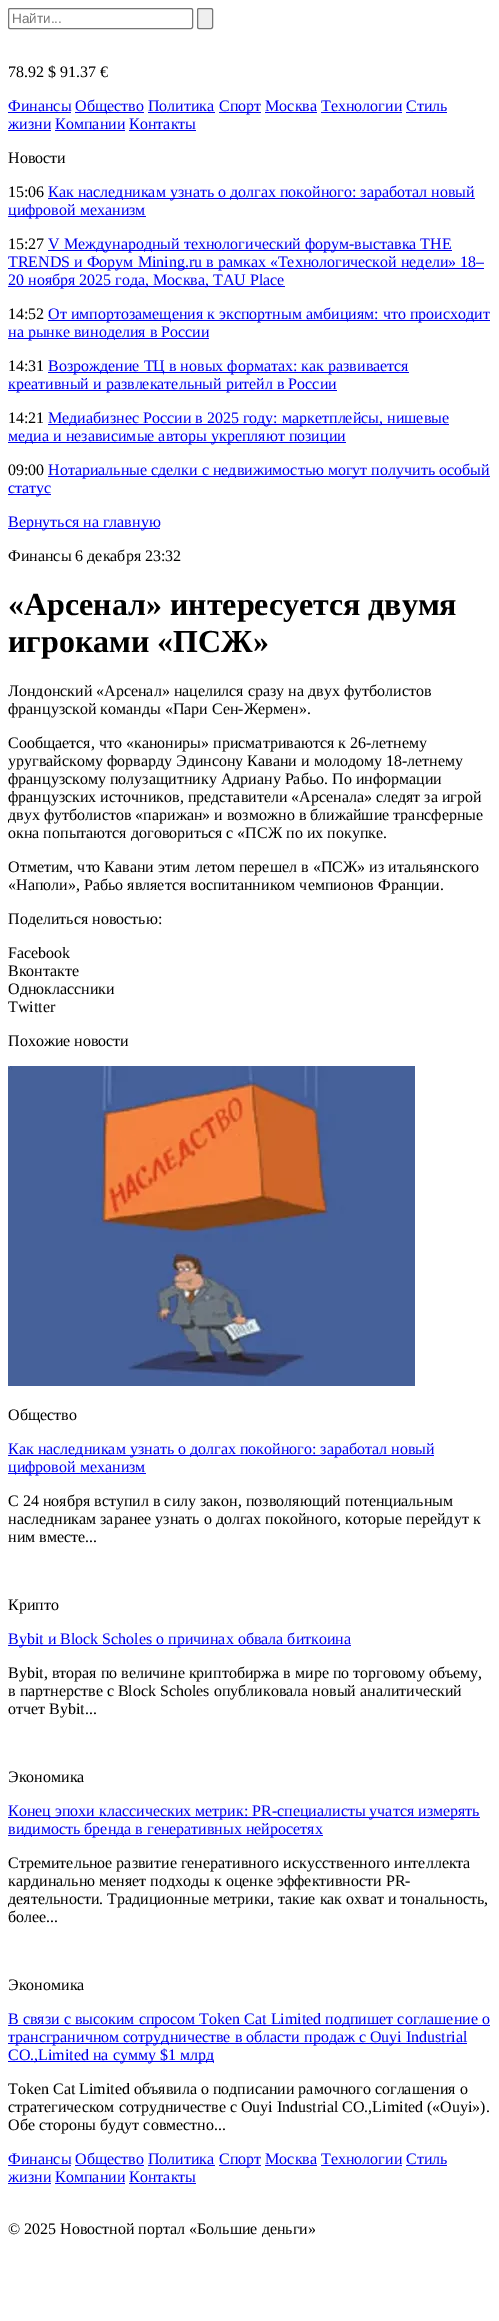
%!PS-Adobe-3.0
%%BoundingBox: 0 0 499 2321
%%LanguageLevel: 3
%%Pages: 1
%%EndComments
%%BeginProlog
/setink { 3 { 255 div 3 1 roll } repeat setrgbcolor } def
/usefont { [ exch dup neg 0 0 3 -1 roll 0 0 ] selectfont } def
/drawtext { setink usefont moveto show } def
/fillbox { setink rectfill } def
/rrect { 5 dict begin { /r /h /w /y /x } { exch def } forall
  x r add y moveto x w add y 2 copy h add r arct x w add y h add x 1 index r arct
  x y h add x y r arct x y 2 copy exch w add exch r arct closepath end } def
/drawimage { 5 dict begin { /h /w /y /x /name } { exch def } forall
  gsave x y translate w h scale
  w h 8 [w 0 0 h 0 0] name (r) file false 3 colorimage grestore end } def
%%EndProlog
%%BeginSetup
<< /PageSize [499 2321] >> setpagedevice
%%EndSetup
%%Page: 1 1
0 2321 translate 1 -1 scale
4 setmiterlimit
0 0 499 2321 255 255 255 fillbox
118 118 118 setink
8.5 8.5 184 20 1.5 rrect stroke
(Найти...) 12 23 /LiberationSans-Regular 13.5 117 117 117 drawtext
239 239 239 setink
197.5 8.5 15 20 1.5 rrect gsave fill grestore
118 118 118 setink
stroke
(78.92 $ 91.37 €) 8 77 /LiberationSerif-Regular 16 0 0 0 drawtext
(Финансы) 8 111 /LiberationSerif-Regular 16 0 0 238 drawtext
8 112 63 1 0 0 238 fillbox
75 112 69 1 0 0 238 fillbox
(Общество Политика) 75 111 /LiberationSerif-Regular 16 0 0 238 drawtext
219 112 42 1 0 0 238 fillbox
(Спорт Москва Технологии Стиль) 219 111 /LiberationSerif-Regular 16 0 0 238 drawtext
148 112 67 1 0 0 238 fillbox
265 112 52 1 0 0 238 fillbox
321 112 81 1 0 0 238 fillbox
(жизни Компании Контакты) 8 129 /LiberationSerif-Regular 16 0 0 238 drawtext
406 112 41 1 0 0 238 fillbox
8 130 43 1 0 0 238 fillbox
55 130 70 1 0 0 238 fillbox
129 130 67 1 0 0 238 fillbox
(Новости) 8 163 /LiberationSerif-Regular 16 0 0 0 drawtext
(15:06) 8 197 /LiberationSerif-Regular 16 0 0 0 drawtext
48 198 427 1 0 0 238 fillbox
(Как наследникам узнать о долгах покойного: заработал новый) 48 197 /LiberationSerif-Regular 16 0 0 238 drawtext
8 216 138 1 0 0 238 fillbox
(цифровой механизм) 8 215 /LiberationSerif-Regular 16 0 0 238 drawtext
(15:27) 8 249 /LiberationSerif-Regular 16 0 0 0 drawtext
48 250 404 1 0 0 238 fillbox
(V Международный технологический форум-выставка THE) 48 249 /LiberationSerif-Regular 16 0 0 238 drawtext
8 268 476 1 0 0 238 fillbox
(TRENDS и Форум Mining.ru в рамках «Технологической недели» 18–) 8 267 /LiberationSerif-Regular 16 0 0 238 drawtext
8 286 277 1 0 0 238 fillbox
(20 ноября 2025 года, Москва, TAU Place) 8 285 /LiberationSerif-Regular 16 0 0 238 drawtext
(14:52) 8 319 /LiberationSerif-Regular 16 0 0 0 drawtext
48 320 442 1 0 0 238 fillbox
(От импортозамещения к экспортным амбициям: что происходит) 48 319 /LiberationSerif-Regular 16 0 0 238 drawtext
8 338 201 1 0 0 238 fillbox
(на рынке виноделия в России) 8 337 /LiberationSerif-Regular 16 0 0 238 drawtext
(14:31) 8 371 /LiberationSerif-Regular 16 0 0 0 drawtext
48 372 361 1 0 0 238 fillbox
(Возрождение ТЦ в новых форматах: как развивается) 48 371 /LiberationSerif-Regular 16 0 0 238 drawtext
8 390 329 1 0 0 238 fillbox
(креативный и развлекательный ритейл в России) 8 389 /LiberationSerif-Regular 16 0 0 238 drawtext
(14:21) 8 423 /LiberationSerif-Regular 16 0 0 0 drawtext
48 424 401 1 0 0 238 fillbox
(Медиабизнес России в 2025 году: маркетплейсы, нишевые) 48 423 /LiberationSerif-Regular 16 0 0 238 drawtext
8 442 338 1 0 0 238 fillbox
(медиа и независимые авторы укрепляют позиции) 8 441 /LiberationSerif-Regular 16 0 0 238 drawtext
(09:00) 8 475 /LiberationSerif-Regular 16 0 0 0 drawtext
48 476 442 1 0 0 238 fillbox
(Нотариальные сделки с недвижимостью могут получить особый) 48 475 /LiberationSerif-Regular 16 0 0 238 drawtext
8 494 43 1 0 0 238 fillbox
(статус) 8 493 /LiberationSerif-Regular 16 0 0 238 drawtext
8 528 152 1 0 0 238 fillbox
(Вернуться на главную) 8 527 /LiberationSerif-Regular 16 0 0 238 drawtext
(Финансы 6 декабря 23:32) 8 561 /LiberationSerif-Regular 16 0 0 0 drawtext
(«Арсенал» интересуется двумя) 8 615 /LiberationSerif-Bold 32 0 0 0 drawtext
(игроками «ПСЖ») 8 652 /LiberationSerif-Bold 32 0 0 0 drawtext
(Лондонский «Арсенал» нацелился сразу на двух футболистов) 8 696 /LiberationSerif-Regular 16 0 0 0 drawtext
(французской команды «Пари Сен-Жермен».) 8 714 /LiberationSerif-Regular 16 0 0 0 drawtext
(Сообщается, что «канониры» присматриваются к 26-летнему) 8 748 /LiberationSerif-Regular 16 0 0 0 drawtext
(уругвайскому форварду Эдинсону Кавани и молодому 18-летнему) 8 766 /LiberationSerif-Regular 16 0 0 0 drawtext
(французскому полузащитнику Адриану Рабьо. По информации) 8 784 /LiberationSerif-Regular 16 0 0 0 drawtext
(французских источников, представители «Арсенала» следят за игрой) 8 802 /LiberationSerif-Regular 16 0 0 0 drawtext
(двух футболистов «парижан» и возможно в ближайшие трансферные) 8 820 /LiberationSerif-Regular 16 0 0 0 drawtext
(окна попытаются договориться с «ПСЖ по их покупке.) 8 838 /LiberationSerif-Regular 16 0 0 0 drawtext
(Отметим, что Кавани этим летом перешел в «ПСЖ» из итальянского) 8 872 /LiberationSerif-Regular 16 0 0 0 drawtext
(«Наполи», Рабьо является воспитанником чемпионов Франции.) 8 890 /LiberationSerif-Regular 16 0 0 0 drawtext
(Поделиться новостью:) 8 924 /LiberationSerif-Regular 16 0 0 0 drawtext
(Facebook) 8 958 /LiberationSerif-Regular 16 0 0 0 drawtext
(Вконтакте) 8 976 /LiberationSerif-Regular 16 0 0 0 drawtext
(Одноклассники) 8 994 /LiberationSerif-Regular 16 0 0 0 drawtext
(Twitter) 8 1012 /LiberationSerif-Regular 16 0 0 0 drawtext
(Похожие новости) 8 1046 /LiberationSerif-Regular 16 0 0 0 drawtext
(assets/img1.rgb) 8 1066 407 320 drawimage
(Общество) 8 1420 /LiberationSerif-Regular 16 0 0 0 drawtext
8 1455 426 1 0 0 238 fillbox
(Как наследникам узнать о долгах покойного: заработал новый) 8 1454 /LiberationSerif-Regular 16 0 0 238 drawtext
8 1473 138 1 0 0 238 fillbox
(цифровой механизм) 8 1472 /LiberationSerif-Regular 16 0 0 238 drawtext
(С 24 ноября вступил в силу закон, позволяющий потенциальным) 8 1506 /LiberationSerif-Regular 16 0 0 0 drawtext
(наследникам заранее узнать о долгах покойного, которые перейдут к) 8 1524 /LiberationSerif-Regular 16 0 0 0 drawtext
(ним вместе...) 8 1542 /LiberationSerif-Regular 16 0 0 0 drawtext
(Крипто) 8 1610 /LiberationSerif-Regular 16 0 0 0 drawtext
8 1645 343 1 0 0 238 fillbox
(Bybit и Block Scholes о причинах обвала биткоина) 8 1644 /LiberationSerif-Regular 16 0 0 238 drawtext
(Bybit, вторая по величине криптобиржа в мире по торговому объему,) 8 1678 /LiberationSerif-Regular 16 0 0 0 drawtext
(в партнерстве с Block Scholes опубликовала новый аналитический) 8 1696 /LiberationSerif-Regular 16 0 0 0 drawtext
(отчет Bybit...) 8 1714 /LiberationSerif-Regular 16 0 0 0 drawtext
(Экономика) 8 1782 /LiberationSerif-Regular 16 0 0 0 drawtext
8 1817 472 1 0 0 238 fillbox
(Конец эпохи классических метрик: PR-специалисты учатся измерять) 8 1816 /LiberationSerif-Regular 16 0 0 238 drawtext
8 1835 315 1 0 0 238 fillbox
(видимость бренда в генеративных нейросетях) 8 1834 /LiberationSerif-Regular 16 0 0 238 drawtext
(Стремительное развитие генеративного искусственного интеллекта) 8 1868 /LiberationSerif-Regular 16 0 0 0 drawtext
(кардинально меняет подходы к оценке эффективности PR-) 8 1886 /LiberationSerif-Regular 16 0 0 0 drawtext
(деятельности. Традиционные метрики, такие как охват и тональность,) 8 1904 /LiberationSerif-Regular 16 0 0 0 drawtext
(более...) 8 1922 /LiberationSerif-Regular 16 0 0 0 drawtext
(Экономика) 8 1990 /LiberationSerif-Regular 16 0 0 0 drawtext
8 2025 482 1 0 0 238 fillbox
(В связи с высоким спросом Token Cat Limited подпишет соглашение о) 8 2024 /LiberationSerif-Regular 16 0 0 238 drawtext
8 2043 459 1 0 0 238 fillbox
(трансграничном сотрудничестве в области продаж с Ouyi Industrial) 8 2042 /LiberationSerif-Regular 16 0 0 238 drawtext
8 2061 206 1 0 0 238 fillbox
(CO.,Limited на сумму $1 млрд) 8 2060 /LiberationSerif-Regular 16 0 0 238 drawtext
(Token Cat Limited объявила о подписании рамочного соглашения о) 8 2094 /LiberationSerif-Regular 16 0 0 0 drawtext
(стратегическом сотрудничестве с Ouyi Industrial CO.,Limited \(«Ouyi»\).) 8 2112 /LiberationSerif-Regular 16 0 0 0 drawtext
(Обе стороны будут совместно...) 8 2130 /LiberationSerif-Regular 16 0 0 0 drawtext
(Финансы) 8 2164 /LiberationSerif-Regular 16 0 0 238 drawtext
8 2165 63 1 0 0 238 fillbox
75 2165 69 1 0 0 238 fillbox
(Общество Политика) 75 2164 /LiberationSerif-Regular 16 0 0 238 drawtext
219 2165 42 1 0 0 238 fillbox
(Спорт Москва Технологии Стиль) 219 2164 /LiberationSerif-Regular 16 0 0 238 drawtext
148 2165 67 1 0 0 238 fillbox
265 2165 52 1 0 0 238 fillbox
321 2165 81 1 0 0 238 fillbox
(жизни Компании Контакты) 8 2182 /LiberationSerif-Regular 16 0 0 238 drawtext
406 2165 41 1 0 0 238 fillbox
8 2183 43 1 0 0 238 fillbox
55 2183 70 1 0 0 238 fillbox
129 2183 67 1 0 0 238 fillbox
(© 2025 Новостной портал «Большие деньги») 8 2234 /LiberationSerif-Regular 16 0 0 0 drawtext
showpage
%%EOF
